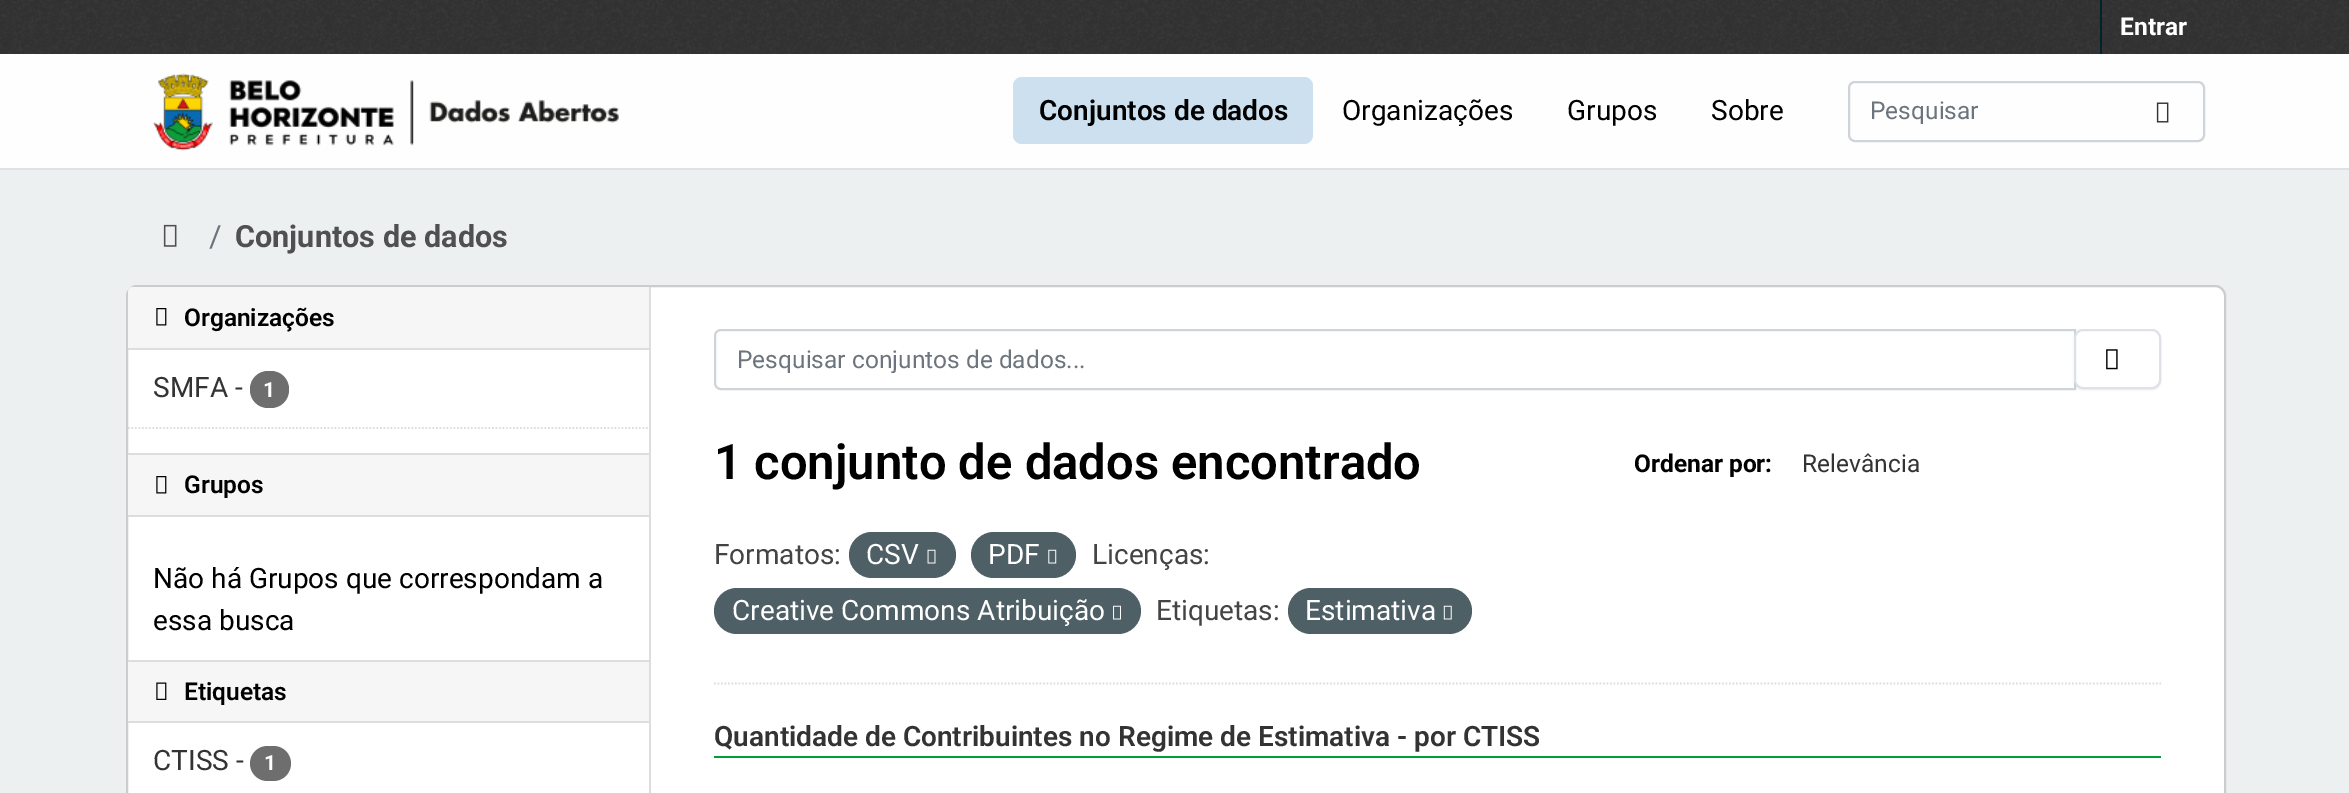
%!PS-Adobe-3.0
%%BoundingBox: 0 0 2349 793
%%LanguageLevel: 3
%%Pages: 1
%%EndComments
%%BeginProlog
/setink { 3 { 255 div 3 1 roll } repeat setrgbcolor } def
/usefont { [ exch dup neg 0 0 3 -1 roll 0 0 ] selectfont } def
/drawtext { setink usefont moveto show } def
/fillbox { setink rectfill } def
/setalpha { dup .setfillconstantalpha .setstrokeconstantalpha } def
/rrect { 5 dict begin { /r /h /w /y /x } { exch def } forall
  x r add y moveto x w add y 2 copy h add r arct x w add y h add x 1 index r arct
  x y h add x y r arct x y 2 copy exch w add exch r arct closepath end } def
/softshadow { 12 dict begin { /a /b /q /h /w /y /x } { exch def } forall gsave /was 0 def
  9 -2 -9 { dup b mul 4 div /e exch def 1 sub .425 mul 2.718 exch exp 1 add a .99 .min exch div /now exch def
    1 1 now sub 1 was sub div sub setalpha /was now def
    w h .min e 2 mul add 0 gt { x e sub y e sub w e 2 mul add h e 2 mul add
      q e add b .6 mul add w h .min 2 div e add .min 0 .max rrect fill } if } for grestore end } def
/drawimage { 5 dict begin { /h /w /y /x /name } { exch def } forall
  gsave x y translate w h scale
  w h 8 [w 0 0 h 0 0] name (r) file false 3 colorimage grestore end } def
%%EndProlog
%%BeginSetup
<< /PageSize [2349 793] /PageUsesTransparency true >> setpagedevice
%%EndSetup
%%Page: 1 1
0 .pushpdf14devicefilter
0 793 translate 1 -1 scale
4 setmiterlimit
0 0 2349 793 236 240 241 fillbox
0 0 2349 54 51 51 51 fillbox
(assets/img1.rgb) 0 0 2349 54 drawimage
2100 0 2 54 0 35 46 fillbox
(Entrar) 2120 35 /Roboto-Bold 24.5 255 255 255 drawtext
0 54 2349 114 254 254 254 fillbox
0 168 2349 2 222 226 230 fillbox
(assets/img2.rgb) 152 73 467 78 drawimage
204 224 239 setink
1013 77 300 67 9 rrect fill
(Conjuntos de dados) 1039 120 /Roboto-SemiBold 28 0 0 0 drawtext
(Organizações) 1342 120 /Roboto-Regular 28 0 0 0 drawtext
(Grupos) 1567 120 /Roboto-Regular 28 0 0 0 drawtext
(Sobre) 1711 120 /Roboto-Regular 28 0 0 0 drawtext
206 212 218 setink
2 setlinewidth
1849 82 355 59 6 rrect stroke
(Pesquisar) 1870 119 /Roboto-Regular 24.5 108 117 125 drawtext
(assets/img3.rgb) 2156 102 13 21 drawimage
(assets/img4.rgb) 163 224 14 23 drawimage
(/) 209 247 /Roboto-Regular 30.6 108 117 125 drawtext
(Conjuntos de dados) 235 247 /Roboto-Bold 30.6 80 80 80 drawtext
255 255 255 setink
127 286 2098 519 10 rrect gsave fill grestore
204 204 204 setink
stroke
246 246 246 setink
133 287 moveto 649 287 lineto 649 350 lineto 128 350 lineto 128 292 lineto 128 289 130 287 133 287 curveto closepath fill
128 348 521 2 221 221 221 fillbox
(assets/img5.rgb) 156 308 11 18 drawimage
(Organizações) 184 326 /Roboto-SemiBold 24.5 0 0 0 drawtext
(SMFA -) 153 397 /Roboto-Regular 28 51 51 51 drawtext
110 110 110 setink
250 371 39 37 18 rrect fill
(1) 263 397 /Roboto-Bold 21 255 255 255 drawtext
221 221 221 setink
1.8 setlinewidth
[1.75 1.75] 0 setdash
128 428 moveto 649 428 lineto stroke
128 455 521 60 246 246 246 fillbox
128 453 521 2 221 221 221 fillbox
128 515 521 2 221 221 221 fillbox
(assets/img5.rgb) 156 476 11 18 drawimage
(Grupos) 184 493 /Roboto-SemiBold 24.5 0 0 0 drawtext
(Não há Grupos que correspondam a) 153 588 /Roboto-Regular 28 0 0 0 drawtext
(essa busca) 153 630 /Roboto-Regular 28 0 0 0 drawtext
128 662 521 59 246 246 246 fillbox
128 660 521 2 221 221 221 fillbox
128 721 521 2 221 221 221 fillbox
(assets/img6.rgb) 156 682 11 18 drawimage
(Etiquetas) 184 700 /Roboto-SemiBold 24.5 0 0 0 drawtext
(CTISS -) 153 770 /Roboto-Regular 28 51 51 51 drawtext
110 110 110 setink
250 746 41 35 17.5 rrect fill
(1) 264 770 /Roboto-Bold 21 255 255 255 drawtext
649 287 2 506 221 221 221 fillbox
714 683.5 moveto 2161 683.5 lineto stroke
206 212 218 setink
2 setlinewidth
[] 0 setdash
721 330 moveto 2075 330 lineto 2075 389 lineto 721 389 lineto 717.5 389 715 386.5 715 383 curveto 715 336 lineto 715 332.5 717.5 330 721 330 curveto closepath stroke
gsave
737 345 1316 28 rectclip
(Pesquisar conjuntos de dados...) 737 368 /Roboto-Regular 24.5 108 117 125 drawtext
grestore
0 0 0 setink
2074 331 87 59 9 1 0.07 softshadow
255 255 255 setink
2075 330 85 58 8 rrect gsave fill grestore
222 226 230 setink
stroke
(assets/img7.rgb) 2106 349 12 21 drawimage
(1 conjunto de dados encontrado) 714 479 /Roboto-SemiBold 49 0 0 0 drawtext
(Ordenar por:) 1634 472 /Roboto-Bold 24.5 0 0 0 drawtext
(Relevância) 1802 472 /Roboto-Regular 24.5 51 51 51 drawtext
(Formatos:) 714 564 /Roboto-Regular 28 68 68 68 drawtext
78 95 101 setink
849 532 107 46 23 rrect fill
(CSV) 866 564 /Roboto-Regular 28 255 255 255 drawtext
(assets/img8.rgb) 927 549 9 15 drawimage
78 95 101 setink
971 532 105 46 23 rrect fill
(PDF) 988 564 /Roboto-Regular 28 255 255 255 drawtext
(assets/img9.rgb) 1048 549 9 15 drawimage
(Licenças:) 1092 564 /Roboto-Regular 28 68 68 68 drawtext
78 95 101 setink
714 588 427 46 23 rrect fill
(Creative Commons Atribuição) 732 620 /Roboto-Regular 28 255 255 255 drawtext
(assets/img10.rgb) 1113 605 8 15 drawimage
(Etiquetas:) 1156 620 /Roboto-Regular 28 68 68 68 drawtext
78 95 101 setink
1288 588 184 46 23 rrect fill
(Estimativa) 1305 620 /Roboto-Regular 28 255 255 255 drawtext
(assets/img11.rgb) 1443 605 9 15 drawimage
714 756 1447 2 0 158 59 fillbox
(Quantidade de Contribuintes no Regime de Estimativa - por CTISS) 714 746 /Roboto-SemiBold 28 51 51 51 drawtext
.poppdf14devicefilter showpage
%%EOF
